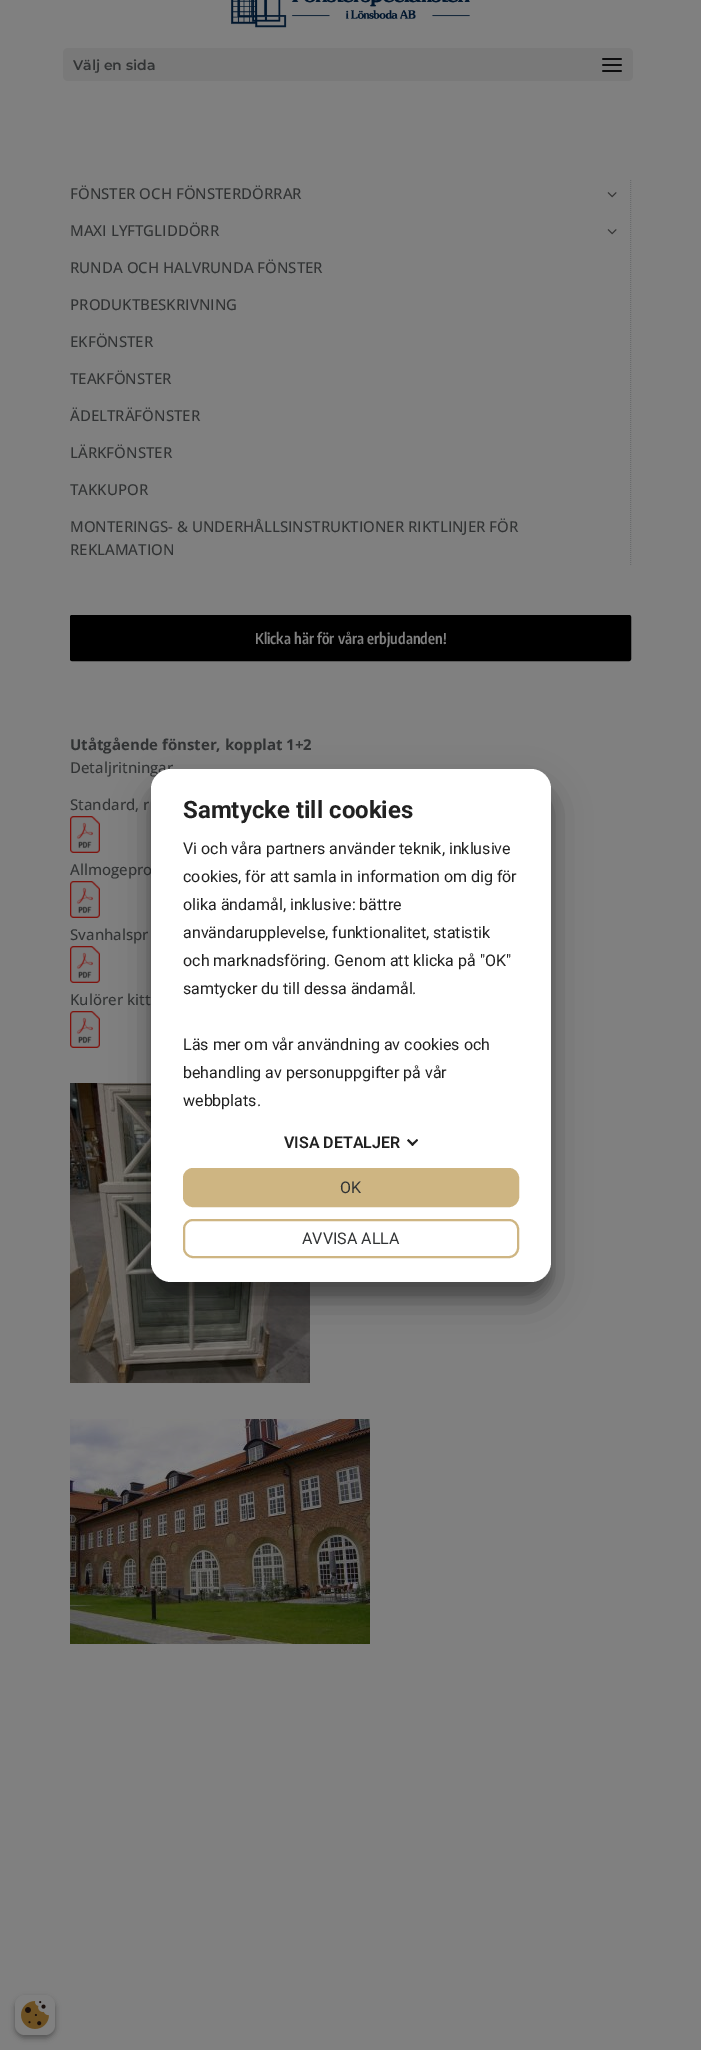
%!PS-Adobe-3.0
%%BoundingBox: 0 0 701 2050
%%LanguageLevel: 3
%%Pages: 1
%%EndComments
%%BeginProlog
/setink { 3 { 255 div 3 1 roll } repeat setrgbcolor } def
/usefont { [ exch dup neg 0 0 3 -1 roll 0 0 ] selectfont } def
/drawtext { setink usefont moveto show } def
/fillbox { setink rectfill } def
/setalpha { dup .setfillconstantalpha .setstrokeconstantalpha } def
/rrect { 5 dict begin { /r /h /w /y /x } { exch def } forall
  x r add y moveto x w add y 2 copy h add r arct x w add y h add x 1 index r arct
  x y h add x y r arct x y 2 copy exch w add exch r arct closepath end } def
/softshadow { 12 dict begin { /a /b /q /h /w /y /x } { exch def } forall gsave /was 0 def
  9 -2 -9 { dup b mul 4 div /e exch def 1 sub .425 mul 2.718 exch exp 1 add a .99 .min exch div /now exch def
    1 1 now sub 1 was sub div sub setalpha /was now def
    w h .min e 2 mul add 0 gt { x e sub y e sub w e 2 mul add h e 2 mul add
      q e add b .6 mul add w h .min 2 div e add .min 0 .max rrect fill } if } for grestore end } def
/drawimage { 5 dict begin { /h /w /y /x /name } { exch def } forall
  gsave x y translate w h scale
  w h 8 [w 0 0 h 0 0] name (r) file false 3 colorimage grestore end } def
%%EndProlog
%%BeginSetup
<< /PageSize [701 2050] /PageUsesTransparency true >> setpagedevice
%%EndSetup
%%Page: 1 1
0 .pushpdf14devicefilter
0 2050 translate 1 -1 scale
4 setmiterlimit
0 0 701 2050 128 128 128 fillbox
(assets/img1.rgb) 231 0 239 28 drawimage
121 121 121 setink
63 48 570 33 5 rrect fill
(Välj en sida) 73 70 /Montserrat-Thin 14 49 51 52 drawtext
(assets/img2.rgb) 602 58 20 14 drawimage
105 107 108 setink
[1 1] 0 setdash
630.5 180 moveto 630.5 565 lineto stroke
(FÖNSTER OCH FÖNSTERDÖRRAR) 70 199 /OpenSans-Medium 15 49 51 52 drawtext
(assets/img3.rgb) 607 192 10 6 drawimage
(MAXI LYFTGLIDDÖRR) 70 236 /OpenSans-Medium 15 49 51 52 drawtext
(assets/img3.rgb) 607 229 10 6 drawimage
(RUNDA OCH HALVRUNDA FÖNSTER) 70 273 /OpenSans-Medium 15 49 51 52 drawtext
(PRODUKTBESKRIVNING) 70 310 /OpenSans-Medium 15 49 51 52 drawtext
(EKFÖNSTER) 70 347 /OpenSans-Medium 15 49 51 52 drawtext
(TEAKFÖNSTER) 70 384 /OpenSans-Medium 15 49 51 52 drawtext
(ÄDELTRÄFÖNSTER) 70 421 /OpenSans-Medium 15 49 51 52 drawtext
(LÄRKFÖNSTER) 70 458 /OpenSans-Medium 15 49 51 52 drawtext
(TAKKUPOR) 70 495 /OpenSans-Medium 15 49 51 52 drawtext
(MONTERINGS- & UNDERHÅLLSINSTRUKTIONER RIKTLINJER FÖR) 70 532 /OpenSans-Medium 15 49 51 52 drawtext
(REKLAMATION) 70 555 /OpenSans-Medium 15 49 51 52 drawtext
0 0 0 setink
71 616 559 44 1 rrect gsave fill grestore
2 setlinewidth
[] 0 setdash
stroke
(Klicka här för våra erbjudanden!) 255 644 /EncodeSansCondensed-SemiBold 15 128 128 128 drawtext
(Utåtgående fönster, kopplat 1+2) 70 750 /OpenSans-Bold 15 49 51 52 drawtext
(Detaljritningar) 70 773 /OpenSans-Medium 15 49 51 52 drawtext
(Standard, r) 70 810 /OpenSans-Medium 15 49 51 52 drawtext
(assets/img4.rgb) 70 816 30 37 drawimage
(Allmogepro) 70 875 /OpenSans-Medium 15 49 51 52 drawtext
(assets/img4.rgb) 70 881 30 37 drawimage
(Svanhalspr) 70 940 /OpenSans-Medium 15 49 51 52 drawtext
(assets/img4.rgb) 70 946 30 37 drawimage
(Kulörer kitt) 70 1005 /OpenSans-Medium 15 49 51 52 drawtext
(assets/img4.rgb) 70 1011 30 37 drawimage
(assets/img5.rgb) 70 1083 240 300 drawimage
(assets/img6.rgb) 70 1419 300 225 drawimage
0 0 0 setink
151 784 400 513 20 6 0.22 softshadow
151 788 400 513 20 19 0.3 softshadow
255 255 255 setink
151 769 400 513 20 rrect fill
(Samtycke till cookies) 183 818 /Roboto-Bold 24 33 33 33 drawtext
(Vi och våra partners använder teknik, inklusive) 183 854 /Roboto-Regular 16 33 33 33 drawtext
(cookies, för att samla in information om dig för) 183 882 /Roboto-Regular 16 33 33 33 drawtext
(olika ändamål, inklusive: bättre) 183 910 /Roboto-Regular 16 33 33 33 drawtext
(användarupplevelse, funktionalitet, statistik) 183 938 /Roboto-Regular 16 33 33 33 drawtext
(och marknadsföring. Genom att klicka på "OK") 183 966 /Roboto-Regular 16 33 33 33 drawtext
(samtycker du till dessa ändamål.) 183 994 /Roboto-Regular 16 33 33 33 drawtext
(Läs mer om vår användning av cookies och) 183 1050 /Roboto-Regular 16 33 33 33 drawtext
(behandling av personuppgifter på vår) 183 1078 /Roboto-Regular 16 33 33 33 drawtext
(webbplats.) 183 1106 /Roboto-Regular 16 33 33 33 drawtext
(VISA DETALJER) 284 1148 /Roboto-SemiBold 16 33 33 33 drawtext
417 1139 moveto 418 1140.5 lineto 412.5 1146 lineto 411 1144.5 lineto closepath fill
408.5 1139 moveto 414 1144.5 lineto 412.5 1146 lineto 407 1140.5 lineto closepath fill
206 181 130 setink
184 1169 334 37 9 rrect gsave fill grestore
stroke
(OK) 340 1193 /Roboto-Regular 16 49 51 52 drawtext
206 181 130 setink
184 1220 334 37 9 rrect stroke
(AVVISA ALLA) 302 1244 /Roboto-Regular 16 49 51 52 drawtext
0 0 0 setink
15 1998 40 40 10 3 0.23 softshadow
15 1998 40 40 10 3 0.16 softshadow
128 128 128 setink
15 1995 40 40 10 rrect fill
(assets/img7.rgb) 21 2001 28 28 drawimage
.poppdf14devicefilter showpage
%%EOF
